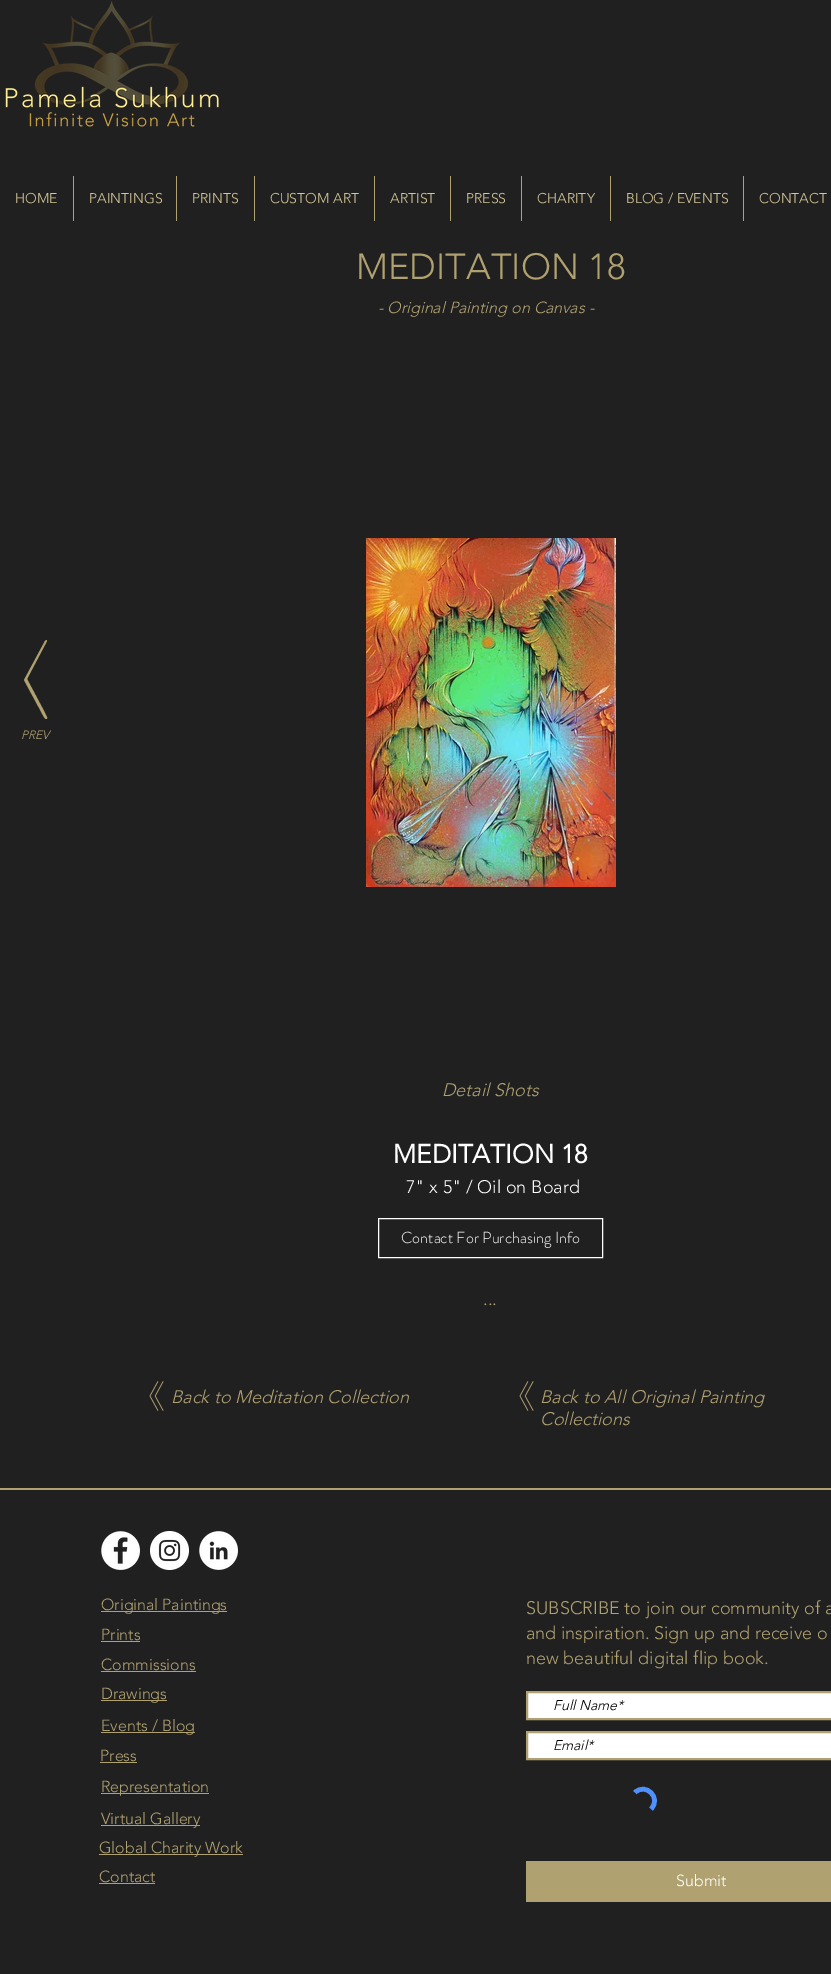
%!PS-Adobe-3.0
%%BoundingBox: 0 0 831 1974
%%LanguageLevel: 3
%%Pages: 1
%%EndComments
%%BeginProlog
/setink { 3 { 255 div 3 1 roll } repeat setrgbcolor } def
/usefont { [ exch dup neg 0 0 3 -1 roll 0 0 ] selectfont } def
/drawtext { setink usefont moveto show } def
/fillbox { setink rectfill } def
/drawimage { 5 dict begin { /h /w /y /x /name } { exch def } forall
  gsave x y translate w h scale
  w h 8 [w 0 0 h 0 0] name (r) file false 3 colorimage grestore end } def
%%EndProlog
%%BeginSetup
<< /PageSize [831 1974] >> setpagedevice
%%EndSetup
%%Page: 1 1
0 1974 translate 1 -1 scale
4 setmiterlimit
0 0 831 1974 33 32 32 fillbox
(assets/img1.rgb) 5 1 214 126 drawimage
(HOME) 15 203 /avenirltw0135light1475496-Light 14 213 200 151 drawtext
73 176 1 45 176 161 113 fillbox
(PAINTINGS) 89 203 /avenirltw0135light1475496-Light 14 213 200 151 drawtext
176 176 1 45 176 161 113 fillbox
(PRINTS) 192 203 /avenirltw0135light1475496-Light 14 213 200 151 drawtext
254 176 1 45 176 161 113 fillbox
(CUSTOM ART) 270 203 /avenirltw0135light1475496-Light 14 213 200 151 drawtext
374 176 1 45 176 161 113 fillbox
(ARTIST) 390 203 /avenirltw0135light1475496-Light 14 213 200 151 drawtext
450 176 1 45 176 161 113 fillbox
(PRESS) 466 203 /avenirltw0135light1475496-Light 14 213 200 151 drawtext
521 176 1 45 176 161 113 fillbox
(CHARITY) 537 203 /avenirltw0135light1475496-Light 14 213 200 151 drawtext
610 176 1 45 176 161 113 fillbox
(BLOG / EVENTS) 626 203 /avenirltw0135light1475496-Light 14 213 200 151 drawtext
743 176 1 45 176 161 113 fillbox
(CONTACT) 759 203 /avenirltw0135light1475496-Light 14 213 200 151 drawtext
(MEDITATION 18) 356 279 /avenirltw0135light1475496-Light 36 176 161 113 drawtext
(- Original Painting on Canvas -) 378 313 /avenirltw0135light1475496-LightItalic 16 176 161 113 drawtext
46 719 moveto 44 719 39 707 38 706 curveto 24 680 lineto 45 641 lineto 46 640 lineto 47 640 47 640 47 641 curveto 27 679 lineto 44 711 lineto 46 716 49 719 46 719 curveto closepath fill
(assets/img2.rgb) 366 538 250 349 drawimage
(PREV) 21 739 /avenirltw0135light1475496-LightItalic 12 176 161 113 drawtext
(Detail Shots) 442 1096 /avenirltw0135light1475496-LightItalic 18 176 161 113 drawtext
(MEDITATION 18) 393 1163 /avenirltw0135light1475496-Bold 26 255 255 255 drawtext
(7" x 5" / Oil on Board) 406 1193 /avenirltw0135light1475496-Light 18 255 255 255 drawtext
378.5 1218.5 224 39 rectstroke
(Contact For Purchasing Info) 401 1243 /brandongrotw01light-Light 16 255 255 255 drawtext
(...) 483 1305 /avenirltw0135light1475496-Light 18 176 161 113 drawtext
(assets/img3.rgb) 149 1381 15 30 drawimage
(Back to Meditation Collection) 171 1403 /avenirltw0135light1475496-LightItalic 18 176 161 113 drawtext
(assets/img3.rgb) 519 1381 15 30 drawimage
(Back to All Original Painting) 540 1403 /avenirltw0135light1475496-LightItalic 18 176 161 113 drawtext
(Collections) 540 1425 /avenirltw0135light1475496-LightItalic 18 176 161 113 drawtext
0 1488 831 2 176 161 113 fillbox
(assets/img4.rgb) 101 1531 39 39 drawimage
(assets/img5.rgb) 150 1531 39 39 drawimage
(assets/img6.rgb) 199 1531 39 39 drawimage
101 1611 126 1 176 161 113 fillbox
(Original Paintings) 101 1610 /avenirltw0135light1475496-Light 16 176 161 113 drawtext
(SUBSCRIBE to join our community of a) 526 1614 /avenirltw0135light1475496-Light 18 176 161 113 drawtext
(and inspiration. Sign up and receive o) 526 1639 /avenirltw0135light1475496-Light 18 176 161 113 drawtext
(new beautiful digital flip book.) 526 1664 /avenirltw0135light1475496-Light 18 176 161 113 drawtext
255 255 255 setink
527 1692 moveto 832 1692 lineto 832 1719 lineto 527 1719 lineto closepath gsave fill grestore
176 161 113 setink
2 setlinewidth
stroke
(Full Name*) 553 1710 /avenirltw0135light1475496-LightItalic 14 0 0 0 drawtext
255 255 255 setink
527 1732 moveto 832 1732 lineto 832 1759 lineto 527 1759 lineto closepath gsave fill grestore
176 161 113 setink
stroke
(Email*) 553 1750 /avenirltw0135light1475496-LightItalic 14 0 0 0 drawtext
77 144 254 setink
4.6 setlinewidth
635 1792.5 moveto 645.5 1782 662 1798 651 1809 curveto stroke
526 1861 305 41 176 161 113 fillbox
(Submit) 676 1886 /avenirltw0135light1475496-Light 16 255 255 255 drawtext
(Prints) 101 1640 /avenirltw0135light1475496-Light 16 176 161 113 drawtext
101 1641 39 1 176 161 113 fillbox
(Commissions) 101 1670 /avenirltw0135light1475496-Light 16 176 161 113 drawtext
101 1671 95 1 176 161 113 fillbox
101 1700 66 1 176 161 113 fillbox
(Drawings) 101 1699 /avenirltw0135light1475496-Light 16 176 161 113 drawtext
101 1732 94 1 176 161 113 fillbox
(Events / Blog) 101 1731 /avenirltw0135light1475496-Light 16 176 161 113 drawtext
(Press) 100 1761 /avenirltw0135light1475496-Light 16 176 161 113 drawtext
100 1762 37 1 176 161 113 fillbox
101 1793 108 1 176 161 113 fillbox
(Representation) 101 1792 /avenirltw0135light1475496-Light 16 176 161 113 drawtext
101 1825 99 1 176 161 113 fillbox
(Virtual Gallery) 101 1824 /avenirltw0135light1475496-Light 16 176 161 113 drawtext
99 1854 144 1 176 161 113 fillbox
(Global Charity Work) 99 1853 /avenirltw0135light1475496-Light 16 176 161 113 drawtext
(Contact) 99 1882 /avenirltw0135light1475496-Light 16 176 161 113 drawtext
99 1883 56 1 176 161 113 fillbox
showpage
%%EOF
